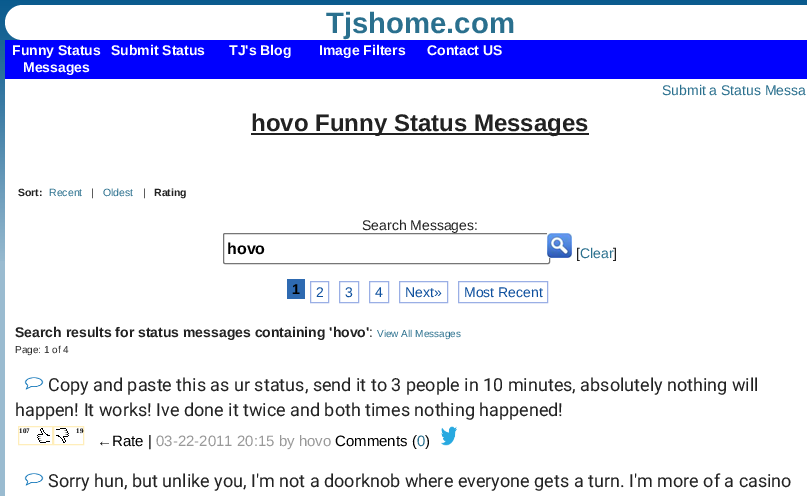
%!PS-Adobe-3.0
%%BoundingBox: 0 0 807 496
%%LanguageLevel: 3
%%Pages: 1
%%EndComments
%%BeginProlog
/setink { 3 { 255 div 3 1 roll } repeat setrgbcolor } def
/usefont { [ exch dup neg 0 0 3 -1 roll 0 0 ] selectfont } def
/drawtext { setink usefont moveto show } def
/fillbox { setink rectfill } def
/rrect { 5 dict begin { /r /h /w /y /x } { exch def } forall
  x r add y moveto x w add y 2 copy h add r arct x w add y h add x 1 index r arct
  x y h add x y r arct x y 2 copy exch w add exch r arct closepath end } def
/drawimage { 5 dict begin { /h /w /y /x /name } { exch def } forall
  gsave x y translate w h scale
  w h 8 [w 0 0 h 0 0] name (r) file false 3 colorimage grestore end } def
%%EndProlog
%%BeginSetup
<< /PageSize [807 496] >> setpagedevice
%%EndSetup
%%Page: 1 1
0 496 translate 1 -1 scale
4 setmiterlimit
0 0 807 496 154 187 208 fillbox
(assets/img1.rgb) 0 0 807 261 drawimage
255 255 255 setink
5 5 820 35 17.5 rrect fill
(Tjshome.com) 326 33 /LiberationSans-Bold 29.25 42 112 142 drawtext
5 40 802 39 0 0 255 fillbox
(Funny Status) 12 55 /LiberationSans-Bold 14 255 255 255 drawtext
(Messages) 23 72 /LiberationSans-Bold 14 255 255 255 drawtext
(Submit Status) 111 55 /LiberationSans-Bold 14 255 255 255 drawtext
(TJ's Blog) 229 55 /LiberationSans-Bold 14 255 255 255 drawtext
(Image Filters) 319 55 /LiberationSans-Bold 14 255 255 255 drawtext
(Contact US) 427 55 /LiberationSans-Bold 14 255 255 255 drawtext
5 79 802 417 255 255 255 fillbox
(Submit a Status Messa) 662 95 /LiberationSans-Regular 14 42 112 142 drawtext
251 133 338 2 34 34 34 fillbox
(hovo Funny Status Messages) 251 131 /LiberationSans-Bold 24 34 34 34 drawtext
(Sort:) 18 196 /LiberationSans-Bold 10.5 34 34 34 drawtext
(Recent) 49 196 /LiberationSans-Regular 10.5 42 112 142 drawtext
(|) 91 196 /LiberationSans-Regular 10.5 34 34 34 drawtext
(Oldest) 103 196 /LiberationSans-Regular 10.5 42 112 142 drawtext
(|) 143 196 /LiberationSans-Regular 10.5 34 34 34 drawtext
(Rating) 154 196 /LiberationSans-Bold 10.5 34 34 34 drawtext
(Search Messages:) 362 230 /LiberationSans-Regular 14 34 34 34 drawtext
118 118 118 setink
223.5 233.5 326 30 1.5 rrect stroke
(hovo) 227 254 /LiberationSans-Bold 16 0 0 0 drawtext
(assets/img2.rgb) 547 233 25 25 drawimage
([) 576 258 /LiberationSans-Regular 14 34 34 34 drawtext
(Clear) 580 258 /LiberationSans-Regular 14 42 112 142 drawtext
(]) 613 258 /LiberationSans-Regular 14 34 34 34 drawtext
287 279 18 20 46 106 177 fillbox
(1) 292 294 /LiberationSans-Bold 14 0 0 0 drawtext
154 175 229 setink
310.5 281.5 18 21 rectstroke
(2) 316 297 /LiberationSans-Regular 14 14 80 158 drawtext
154 175 229 setink
339.5 281.5 19 21 rectstroke
(3) 345 297 /LiberationSans-Regular 14 14 80 158 drawtext
154 175 229 setink
369.5 281.5 19 21 rectstroke
(4) 375 297 /LiberationSans-Regular 14 14 80 158 drawtext
154 175 229 setink
399.5 281.5 48 21 rectstroke
(Next») 405 297 /LiberationSans-Regular 14 14 80 158 drawtext
154 175 229 setink
458.5 281.5 89 21 rectstroke
(Most Recent) 464 297 /LiberationSans-Regular 14 14 80 158 drawtext
(Search results for status messages containing 'hovo') 15 337 /LiberationSans-Bold 14 34 34 34 drawtext
(:) 369 337 /LiberationSans-Regular 14 34 34 34 drawtext
(View All Messages) 377 337 /LiberationSans-Regular 10 42 112 142 drawtext
(Page: 1 of 4) 15 353 /LiberationSans-Regular 10 34 34 34 drawtext
(assets/img3.rgb) 24 377 20 13 drawimage
(Copy and paste this as ur status, send it to 3 people in 10 minutes, absolutely nothing will) 48 391 /Roboto-Regular 18 34 34 34 drawtext
(happen! It works! Ive done it twice and both times nothing happened!) 15 416 /Roboto-Regular 18 34 34 34 drawtext
(assets/img4.rgb) 37 428 13 15 drawimage
255 238 187 setink
18.5 426.5 34 18 rectstroke
(107) 19 433 /LiberationSerif-Bold 7 0 0 0 drawtext
(assets/img5.rgb) 56 428 13 15 drawimage
255 238 187 setink
53.5 426.5 30 18 rectstroke
(19) 76 433 /LiberationSerif-Bold 7 0 0 0 drawtext
(←Rate |) 97 446 /LiberationSans-Regular 15 0 0 0 drawtext
(03-22-2011 20:15 by hovo) 156 446 /LiberationSans-Regular 15 153 153 153 drawtext
(Comments \() 335 446 /LiberationSans-Regular 15 0 0 0 drawtext
(0) 417 446 /LiberationSans-Regular 15 42 112 142 drawtext
(\)) 425 446 /LiberationSans-Regular 15 0 0 0 drawtext
(assets/img6.rgb) 441 426 16 20 drawimage
(assets/img3.rgb) 24 473 20 13 drawimage
(Sorry hun, but unlike you, I'm not a doorknob where everyone gets a turn. I'm more of a casino) 48 487 /Roboto-Regular 18 34 34 34 drawtext
showpage
%%EOF
